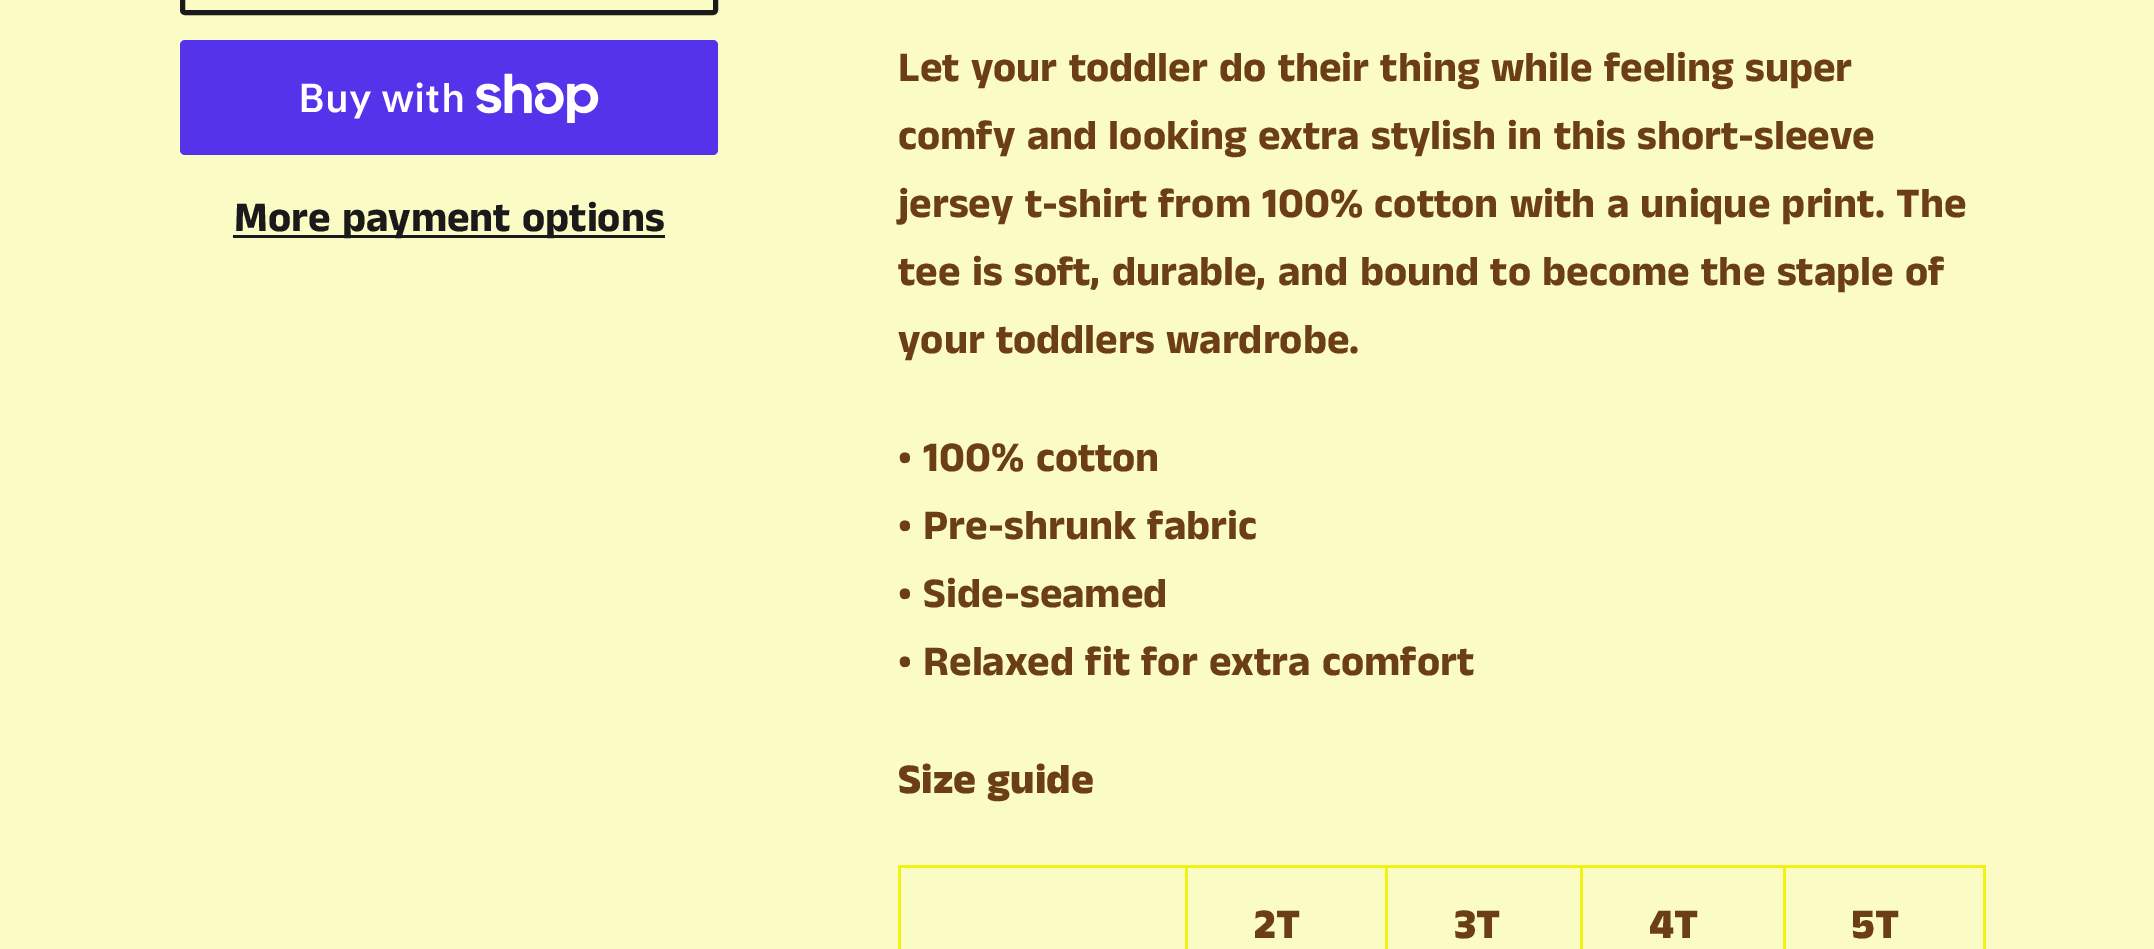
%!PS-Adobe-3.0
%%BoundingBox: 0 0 2154 949
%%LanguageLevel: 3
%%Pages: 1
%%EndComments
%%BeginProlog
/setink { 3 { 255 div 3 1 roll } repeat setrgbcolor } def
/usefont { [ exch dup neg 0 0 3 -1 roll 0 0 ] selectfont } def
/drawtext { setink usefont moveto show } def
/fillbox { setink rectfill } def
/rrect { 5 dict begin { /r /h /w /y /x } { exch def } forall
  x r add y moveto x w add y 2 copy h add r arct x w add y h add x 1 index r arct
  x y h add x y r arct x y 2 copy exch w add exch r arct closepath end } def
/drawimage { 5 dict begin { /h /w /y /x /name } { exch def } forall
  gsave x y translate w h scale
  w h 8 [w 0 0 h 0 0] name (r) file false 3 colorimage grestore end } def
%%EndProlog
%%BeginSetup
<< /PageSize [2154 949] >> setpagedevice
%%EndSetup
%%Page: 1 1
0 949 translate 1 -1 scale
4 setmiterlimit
0 0 2154 949 251 252 197 fillbox
26 26 26 setink
5 setlinewidth
182.5 -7.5 533 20 2.5 rrect stroke
84 51 235 setink
180 40 538 115 5 rrect fill
(Buy with) 298 112 /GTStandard-SemiBold 40 255 255 255 drawtext
(assets/img1.rgb) 476 73 123 50 drawimage
233 235 432 3 26 26 26 fillbox
(More payment options) 234 231 /AnekTamil-Bold 42.5 26 26 26 drawtext
(Let your toddler do their thing while feeling super) 898 81 /AnekTamil-Bold 42.5 108 62 21 drawtext
(comfy and looking extra stylish in this short-sleeve) 898 149 /AnekTamil-Bold 42.5 108 62 21 drawtext
(jersey t-shirt from 100% cotton with a unique print. The) 898 217 /AnekTamil-Bold 42.5 108 62 21 drawtext
(tee is soft, durable, and bound to become the staple of) 898 285 /AnekTamil-Bold 42.5 108 62 21 drawtext
(your toddlers wardrobe.) 898 353 /AnekTamil-Bold 42.5 108 62 21 drawtext
(• 100% cotton) 898 471 /AnekTamil-Bold 42.5 108 62 21 drawtext
(• Pre-shrunk fabric) 898 539 /AnekTamil-Bold 42.5 108 62 21 drawtext
(• Side-seamed) 898 607 /AnekTamil-Bold 42.5 108 62 21 drawtext
(• Relaxed fit for extra comfort) 898 675 /AnekTamil-Bold 42.5 108 62 21 drawtext
(Size guide) 898 793 /AnekTamil-ExtraBold 42.5 108 62 21 drawtext
1783 865 202 3 240 243 18 fillbox
1783 865 3 84 240 243 18 fillbox
1580 865 205 3 240 243 18 fillbox
1580 865 3 84 240 243 18 fillbox
1385 865 198 3 240 243 18 fillbox
1385 865 3 84 240 243 18 fillbox
1185 865 203 3 240 243 18 fillbox
1185 865 3 84 240 243 18 fillbox
898 865 290 3 240 243 18 fillbox
898 865 3 84 240 243 18 fillbox
(2T) 1254 938 /AnekTamil-ExtraBold 42.5 108 62 21 drawtext
(3T) 1454 938 /AnekTamil-ExtraBold 42.5 108 62 21 drawtext
(4T) 1649 938 /AnekTamil-ExtraBold 42.5 108 62 21 drawtext
1983 865 3 84 240 243 18 fillbox
(5T) 1851 938 /AnekTamil-ExtraBold 42.5 108 62 21 drawtext
showpage
%%EOF
